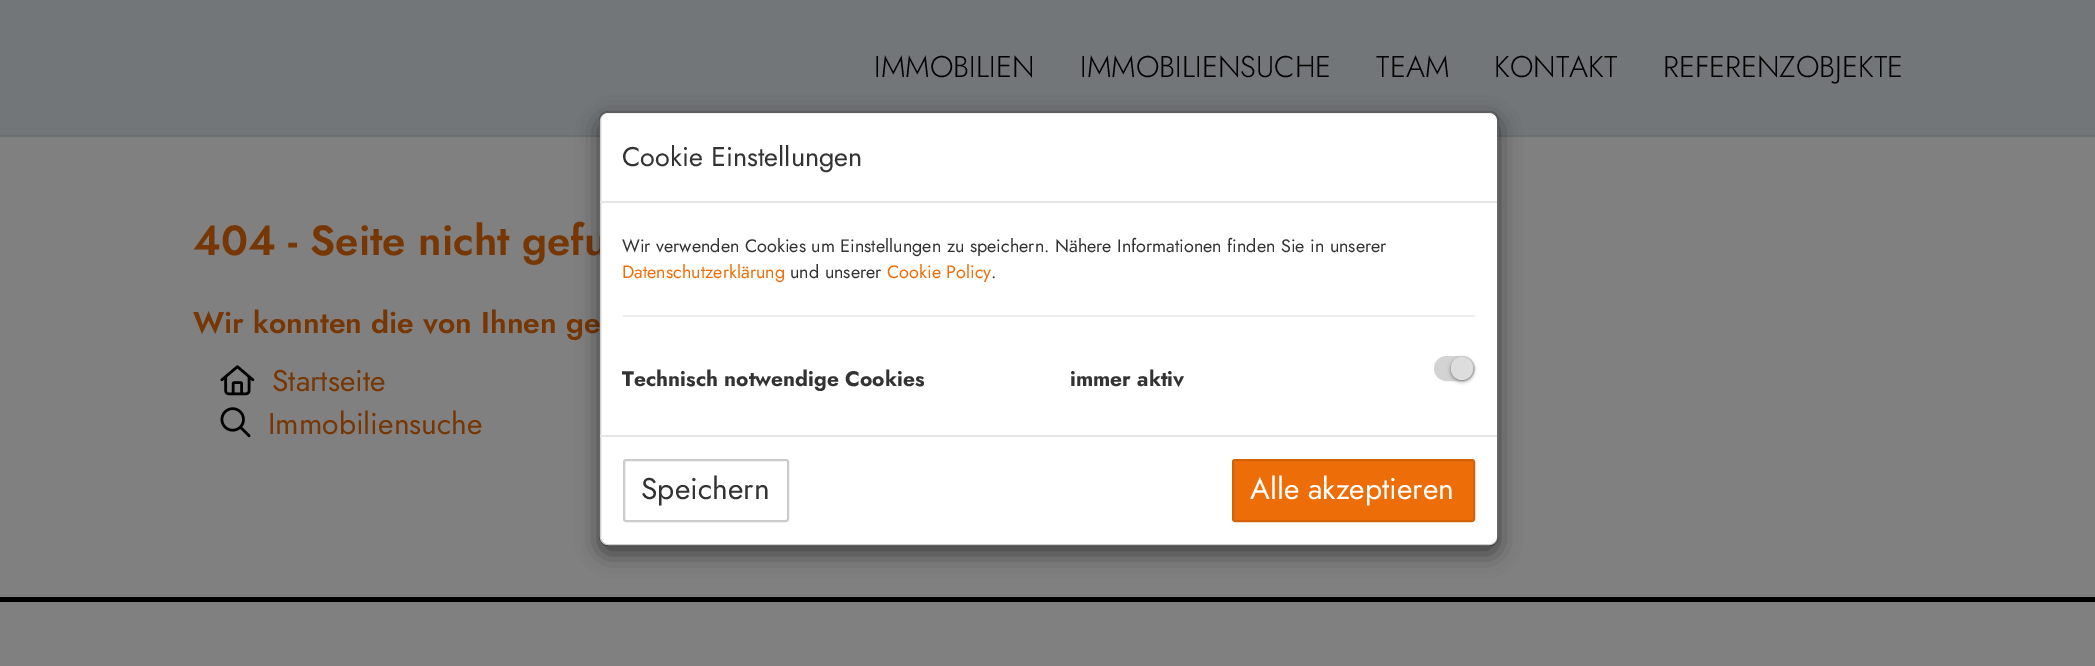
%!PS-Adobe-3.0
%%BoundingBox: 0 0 2095 666
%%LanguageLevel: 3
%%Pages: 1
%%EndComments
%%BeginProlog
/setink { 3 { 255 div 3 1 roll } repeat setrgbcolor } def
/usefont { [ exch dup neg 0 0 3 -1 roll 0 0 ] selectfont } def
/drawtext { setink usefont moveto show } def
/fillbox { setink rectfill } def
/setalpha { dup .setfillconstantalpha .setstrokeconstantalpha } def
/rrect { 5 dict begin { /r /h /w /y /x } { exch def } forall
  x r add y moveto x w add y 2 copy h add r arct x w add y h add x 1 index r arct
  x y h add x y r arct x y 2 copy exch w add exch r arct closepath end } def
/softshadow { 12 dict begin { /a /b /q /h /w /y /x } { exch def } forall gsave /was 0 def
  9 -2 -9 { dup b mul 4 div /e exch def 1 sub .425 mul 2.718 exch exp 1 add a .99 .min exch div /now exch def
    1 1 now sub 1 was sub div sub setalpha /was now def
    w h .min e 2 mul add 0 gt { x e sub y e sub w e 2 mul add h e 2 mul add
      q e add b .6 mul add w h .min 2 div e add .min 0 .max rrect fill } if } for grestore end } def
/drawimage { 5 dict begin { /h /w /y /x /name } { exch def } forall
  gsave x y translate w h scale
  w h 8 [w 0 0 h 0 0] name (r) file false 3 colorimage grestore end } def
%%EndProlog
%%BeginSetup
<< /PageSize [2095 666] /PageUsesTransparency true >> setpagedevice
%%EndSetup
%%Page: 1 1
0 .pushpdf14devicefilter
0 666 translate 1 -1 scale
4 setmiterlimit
0 0 2095 666 128 128 128 fillbox
0 0 2095 135 115 118 120 fillbox
0 135 2095 2 107 112 115 fillbox
(IMMOBILIEN) 874 77 /Jost-Light 30 0 0 0 drawtext
(IMMOBILIENSUCHE) 1080 77 /Jost-Light 30 0 0 0 drawtext
(TEAM) 1376 77 /Jost-Light 30 0 0 0 drawtext
(KONTAKT) 1494 77 /Jost-Light 30 0 0 0 drawtext
(REFERENZOBJEKTE) 1663 77 /Jost-Light 30 0 0 0 drawtext
(404 - Seite nicht gefu) 193 255 /Jost-SemiBold 42 119 55 4 drawtext
(Wir konnten die von Ihnen ge) 193 333 /Jost-SemiBold 30 119 55 4 drawtext
(assets/img1.rgb) 220 365 35 31 drawimage
(Startseite) 272 391 /Jost-Regular 30 119 55 4 drawtext
(assets/img2.rgb) 220 407 31 31 drawimage
(Immobiliensuche) 268 434 /Jost-Regular 30 119 55 4 drawtext
gsave
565 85 moveto 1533 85 lineto 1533 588 lineto 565 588 lineto closepath 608 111 moveto 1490 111 lineto 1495 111 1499 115 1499 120 curveto 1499 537 lineto 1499 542 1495 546 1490 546 curveto 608 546 lineto 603 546 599 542 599 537 curveto 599 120 lineto 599 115 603 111 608 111 curveto closepath eoclip newpath
0 0 0 setink
599 119 900 435 9 11 0.5 softshadow
grestore
255 255 255 setink
600 113 897 432 8 rrect fill
0.2 setalpha
0 0 0 setink
2 setlinewidth
600 112 898 433 8 rrect stroke
1 setalpha
600 201 897 2 229 229 229 fillbox
(Cookie Einstellungen) 622 166 /Jost-Regular 27 51 51 51 drawtext
(Wir verwenden Cookies um Einstellungen zu speichern. Nähere Informationen finden Sie in unserer) 622 252 /Jost-Regular 18 51 51 51 drawtext
(Datenschutzerklärung) 622 278 /Jost-Regular 18 237 110 8 drawtext
(und unserer) 790 278 /Jost-Regular 18 51 51 51 drawtext
(Cookie Policy) 887 278 /Jost-Regular 18 237 110 8 drawtext
(.) 991 278 /Jost-Regular 18 51 51 51 drawtext
623 315 852 2 238 238 238 fillbox
(Technisch notwendige Cookies) 622 386 /Jost-Bold 21 51 51 51 drawtext
(immer aktiv) 1070 386 /Jost-Bold 21 51 51 51 drawtext
211 211 211 setink
1435 357 39 23 11.5 rrect gsave fill grestore
stroke
119 119 119 setink
1451 359 22 22 11 2 1 softshadow
221 221 221 setink
1451 357 22 23 11 rrect fill
600 435 897 2 229 229 229 fillbox
204 204 204 setink
624 460 164 61 2 rrect stroke
(Speichern) 641 499 /Jost-Regular 30 51 51 51 drawtext
237 110 8 setink
1233 460 241 61 2 rrect gsave fill grestore
212 99 7 setink
stroke
(Alle akzeptieren) 1250 499 /Jost-Regular 30 255 255 255 drawtext
0 597 2095 5 0 0 0 fillbox
.poppdf14devicefilter showpage
%%EOF
